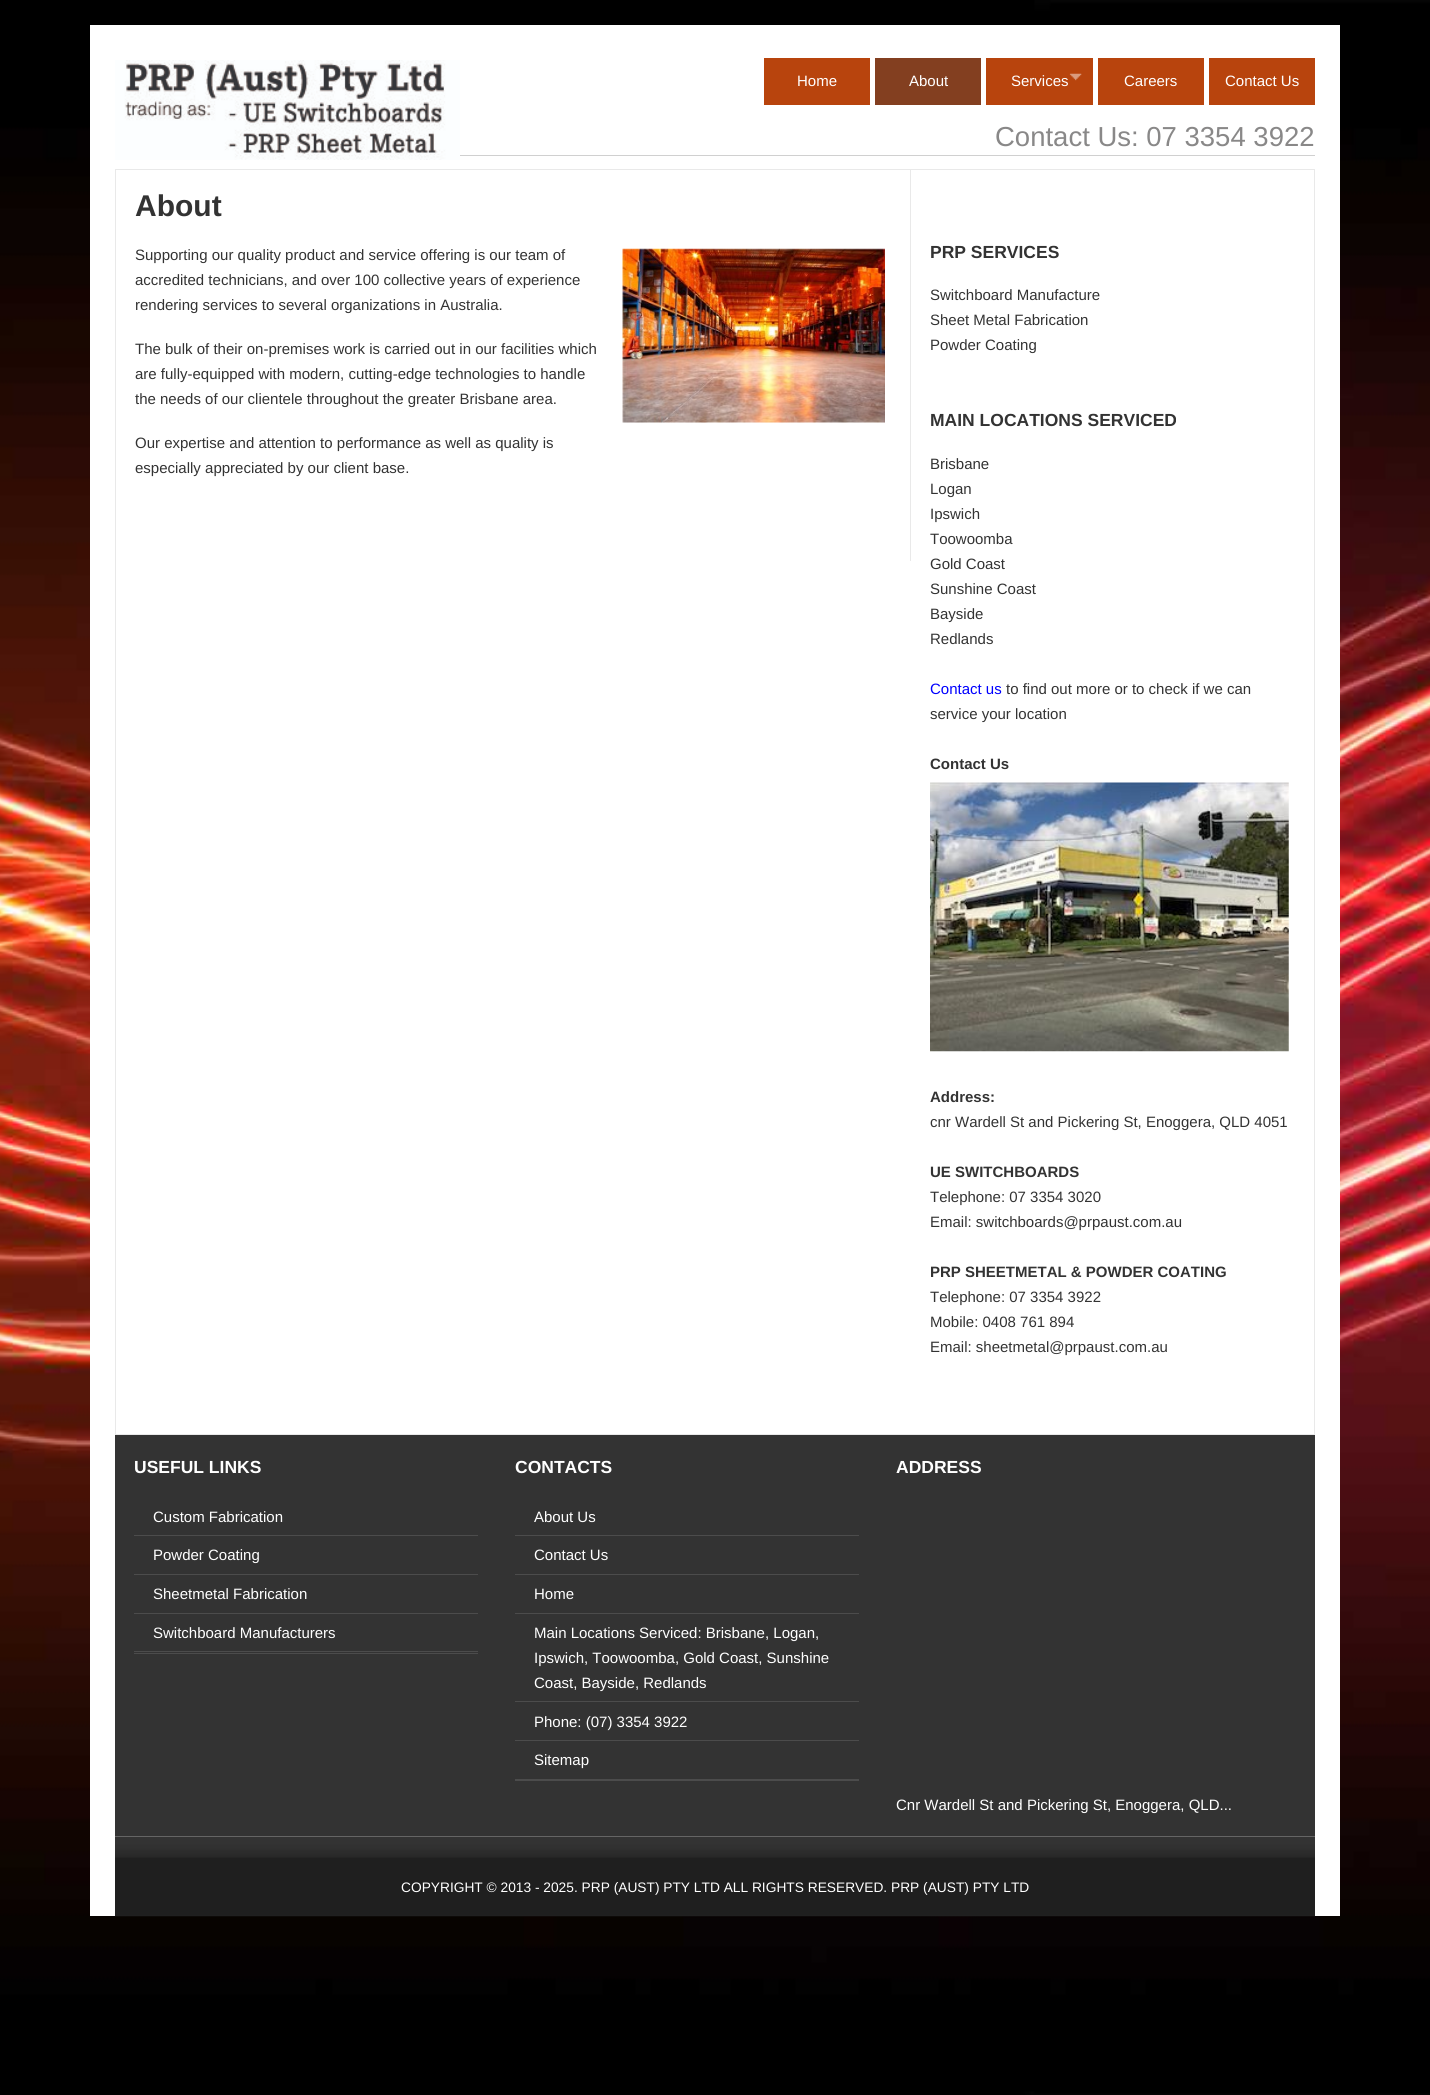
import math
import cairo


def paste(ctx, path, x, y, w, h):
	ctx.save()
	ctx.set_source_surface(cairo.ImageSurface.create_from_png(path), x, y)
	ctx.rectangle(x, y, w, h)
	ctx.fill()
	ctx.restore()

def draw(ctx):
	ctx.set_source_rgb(1, 1, 1)
	ctx.paint()
	paste(ctx, 'media/1.png', 0, 0, 1430, 2095)
	ctx.set_source_rgb(1, 1, 1)
	ctx.rectangle(90, 25, 1250, 1891)
	ctx.fill()
	paste(ctx, 'media/2.png', 115, 60, 345, 100)
	ctx.set_source_rgb(0.722, 0.267, 0.051)
	ctx.rectangle(764, 58, 106, 47)
	ctx.fill()
	ctx.select_font_face('Liberation Sans')
	ctx.set_font_size(15)
	ctx.set_source_rgb(1, 1, 1)
	ctx.move_to(797, 86)
	ctx.show_text('Home')
	ctx.set_source_rgb(0.514, 0.247, 0.125)
	ctx.rectangle(875, 58, 106, 47)
	ctx.fill()
	ctx.set_source_rgb(1, 1, 1)
	ctx.move_to(909, 86)
	ctx.show_text('About')
	ctx.set_source_rgb(0.722, 0.267, 0.051)
	ctx.rectangle(986, 58, 107, 47)
	ctx.fill()
	ctx.set_source_rgb(1, 1, 1)
	ctx.move_to(1011, 86)
	ctx.show_text('Services')
	paste(ctx, 'media/3.png', 1069, 73, 13, 8)
	ctx.set_source_rgb(0.722, 0.267, 0.051)
	ctx.rectangle(1098, 58, 106, 47)
	ctx.fill()
	ctx.set_source_rgb(1, 1, 1)
	ctx.move_to(1124, 86)
	ctx.show_text('Careers')
	ctx.set_source_rgb(0.722, 0.267, 0.051)
	ctx.rectangle(1209, 58, 106, 47)
	ctx.fill()
	ctx.set_source_rgb(1, 1, 1)
	ctx.move_to(1225, 86)
	ctx.show_text('Contact Us')
	ctx.set_source_rgb(0.816, 0.816, 0.816)
	ctx.rectangle(460, 155, 855, 1)
	ctx.fill()
	ctx.set_font_size(27.5)
	ctx.set_source_rgb(0.537, 0.533, 0.533)
	ctx.move_to(995, 146)
	ctx.show_text('Contact Us: 07 3354 3922')
	ctx.rectangle(115.5, 169.5, 1199, 1265)
	ctx.set_source_rgb(0.914, 0.914, 0.914)
	ctx.set_line_width(1)
	ctx.stroke()
	ctx.rectangle(910, 170, 1, 391)
	ctx.fill()
	ctx.select_font_face('Liberation Sans', cairo.FONT_SLANT_NORMAL, cairo.FONT_WEIGHT_BOLD)
	ctx.set_font_size(30)
	ctx.set_source_rgb(0.2, 0.2, 0.2)
	ctx.move_to(135, 216)
	ctx.show_text('About')
	ctx.select_font_face('Liberation Sans')
	ctx.set_font_size(15)
	for x, y, s in [
		(135, 260, 'Supporting our quality product and service offering is our team of'),
		(135, 285, 'accredited technicians, and over 100 collective years of experience'),
		(135, 310, 'rendering services to several organizations in Australia.'),
	]:
		ctx.move_to(x, y)
		ctx.show_text(s)
	paste(ctx, 'media/4.png', 622, 248, 263, 175)
	for x, y, s in [
		(135, 354, 'The bulk of their on-premises work is carried out in our facilities which'),
		(135, 379, 'are fully-equipped with modern, cutting-edge technologies to handle'),
		(135, 404, 'the needs of our clientele throughout the greater Brisbane area.'),
		(135, 448, 'Our expertise and attention to performance as well as quality is'),
		(135, 473, 'especially appreciated by our client base.'),
	]:
		ctx.move_to(x, y)
		ctx.show_text(s)
	ctx.select_font_face('Liberation Sans', cairo.FONT_SLANT_NORMAL, cairo.FONT_WEIGHT_BOLD)
	ctx.set_font_size(17.5)
	ctx.move_to(930, 258)
	ctx.show_text('PRP SERVICES')
	ctx.select_font_face('Liberation Sans')
	ctx.set_font_size(15)
	for x, y, s in [
		(930, 300, 'Switchboard Manufacture'),
		(930, 325, 'Sheet Metal Fabrication'),
		(930, 350, 'Powder Coating'),
	]:
		ctx.move_to(x, y)
		ctx.show_text(s)
	ctx.select_font_face('Liberation Sans', cairo.FONT_SLANT_NORMAL, cairo.FONT_WEIGHT_BOLD)
	ctx.set_font_size(17.5)
	ctx.move_to(930, 426)
	ctx.show_text('MAIN LOCATIONS SERVICED')
	ctx.select_font_face('Liberation Sans')
	ctx.set_font_size(15)
	for x, y, s in [
		(930, 469, 'Brisbane'),
		(930, 494, 'Logan'),
		(930, 519, 'Ipswich'),
		(930, 544, 'Toowoomba'),
		(930, 569, 'Gold Coast'),
		(930, 594, 'Sunshine Coast'),
		(930, 619, 'Bayside'),
		(930, 644, 'Redlands'),
	]:
		ctx.move_to(x, y)
		ctx.show_text(s)
	ctx.set_source_rgb(0, 0, 1)
	ctx.move_to(930, 694)
	ctx.show_text('Contact us')
	ctx.set_source_rgb(0.2, 0.2, 0.2)
	ctx.move_to(1006, 694)
	ctx.show_text('to find out more or to check if we can')
	ctx.move_to(930, 719)
	ctx.show_text('service your location')
	ctx.select_font_face('Liberation Sans', cairo.FONT_SLANT_NORMAL, cairo.FONT_WEIGHT_BOLD)
	ctx.move_to(930, 769)
	ctx.show_text('Contact Us')
	paste(ctx, 'media/5.png', 930, 782, 359, 270)
	ctx.move_to(930, 1102)
	ctx.show_text('Address:')
	ctx.select_font_face('Liberation Sans')
	ctx.move_to(930, 1127)
	ctx.show_text('cnr Wardell St and Pickering St, Enoggera, QLD 4051')
	ctx.select_font_face('Liberation Sans', cairo.FONT_SLANT_NORMAL, cairo.FONT_WEIGHT_BOLD)
	ctx.move_to(930, 1177)
	ctx.show_text('UE SWITCHBOARDS')
	ctx.select_font_face('Liberation Sans')
	ctx.move_to(930, 1202)
	ctx.show_text('Telephone: 07 3354 3020')
	ctx.move_to(930, 1227)
	ctx.show_text('Email: switchboards@prpaust.com.au')
	ctx.select_font_face('Liberation Sans', cairo.FONT_SLANT_NORMAL, cairo.FONT_WEIGHT_BOLD)
	ctx.move_to(930, 1277)
	ctx.show_text('PRP SHEETMETAL & POWDER COATING')
	ctx.select_font_face('Liberation Sans')
	for x, y, s in [
		(930, 1302, 'Telephone: 07 3354 3922'),
		(930, 1327, 'Mobile: 0408 761 894'),
		(930, 1352, 'Email: sheetmetal@prpaust.com.au'),
	]:
		ctx.move_to(x, y)
		ctx.show_text(s)
	ctx.rectangle(115, 1435, 1200, 401)
	ctx.fill()
	ctx.set_source_rgb(0.298, 0.298, 0.298)
	ctx.rectangle(134, 1653, 344, 1)
	ctx.fill()
	ctx.select_font_face('Liberation Sans', cairo.FONT_SLANT_NORMAL, cairo.FONT_WEIGHT_BOLD)
	ctx.set_font_size(17.5)
	ctx.set_source_rgb(1, 1, 1)
	ctx.move_to(134, 1473)
	ctx.show_text('USEFUL LINKS')
	ctx.set_source_rgb(0.298, 0.298, 0.298)
	ctx.rectangle(134, 1535, 344, 1)
	ctx.fill()
	ctx.select_font_face('Liberation Sans')
	ctx.set_font_size(15)
	ctx.set_source_rgb(1, 1, 1)
	ctx.move_to(153, 1522)
	ctx.show_text('Custom Fabrication')
	ctx.set_source_rgb(0.298, 0.298, 0.298)
	ctx.rectangle(134, 1574, 344, 1)
	ctx.fill()
	ctx.set_source_rgb(1, 1, 1)
	ctx.move_to(153, 1560)
	ctx.show_text('Powder Coating')
	ctx.set_source_rgb(0.298, 0.298, 0.298)
	ctx.rectangle(134, 1613, 344, 1)
	ctx.fill()
	ctx.set_source_rgb(1, 1, 1)
	ctx.move_to(153, 1599)
	ctx.show_text('Sheetmetal Fabrication')
	ctx.set_source_rgb(0.298, 0.298, 0.298)
	ctx.rectangle(134, 1651, 344, 1)
	ctx.fill()
	ctx.set_source_rgb(1, 1, 1)
	ctx.move_to(153, 1638)
	ctx.show_text('Switchboard Manufacturers')
	ctx.set_source_rgb(0.298, 0.298, 0.298)
	ctx.rectangle(515, 1779, 344, 2)
	ctx.fill()
	ctx.select_font_face('Liberation Sans', cairo.FONT_SLANT_NORMAL, cairo.FONT_WEIGHT_BOLD)
	ctx.set_font_size(17.5)
	ctx.set_source_rgb(1, 1, 1)
	ctx.move_to(515, 1473)
	ctx.show_text('CONTACTS')
	ctx.set_source_rgb(0.298, 0.298, 0.298)
	ctx.rectangle(515, 1535, 344, 1)
	ctx.fill()
	ctx.select_font_face('Liberation Sans')
	ctx.set_font_size(15)
	ctx.set_source_rgb(1, 1, 1)
	ctx.move_to(534, 1522)
	ctx.show_text('About Us')
	ctx.set_source_rgb(0.298, 0.298, 0.298)
	ctx.rectangle(515, 1574, 344, 1)
	ctx.fill()
	ctx.set_source_rgb(1, 1, 1)
	ctx.move_to(534, 1560)
	ctx.show_text('Contact Us')
	ctx.set_source_rgb(0.298, 0.298, 0.298)
	ctx.rectangle(515, 1613, 344, 1)
	ctx.fill()
	ctx.set_source_rgb(1, 1, 1)
	ctx.move_to(534, 1599)
	ctx.show_text('Home')
	ctx.set_source_rgb(0.298, 0.298, 0.298)
	ctx.rectangle(515, 1701, 344, 1)
	ctx.fill()
	ctx.set_source_rgb(1, 1, 1)
	for x, y, s in [
		(534, 1638, 'Main Locations Serviced: Brisbane, Logan,'),
		(534, 1663, 'Ipswich, Toowoomba, Gold Coast, Sunshine'),
		(534, 1688, 'Coast, Bayside, Redlands'),
	]:
		ctx.move_to(x, y)
		ctx.show_text(s)
	ctx.set_source_rgb(0.298, 0.298, 0.298)
	ctx.rectangle(515, 1740, 344, 1)
	ctx.fill()
	ctx.set_source_rgb(1, 1, 1)
	ctx.move_to(534, 1727)
	ctx.show_text('Phone: (07) 3354 3922')
	ctx.move_to(534, 1765)
	ctx.show_text('Sitemap')
	ctx.select_font_face('Liberation Sans', cairo.FONT_SLANT_NORMAL, cairo.FONT_WEIGHT_BOLD)
	ctx.set_font_size(17.5)
	ctx.move_to(896, 1473)
	ctx.show_text('ADDRESS')
	ctx.select_font_face('Liberation Sans')
	ctx.set_font_size(15)
	ctx.move_to(896, 1810)
	ctx.show_text('Cnr Wardell St and Pickering St, Enoggera, QLD...')
	paste(ctx, 'media/6.png', 115, 1836, 1200, 81)
	ctx.set_font_size(13.75)
	ctx.move_to(401, 1892)
	ctx.show_text('COPYRIGHT © 2013 - 2025. PRP (AUST) PTY LTD ALL RIGHTS RESERVED. PRP (AUST) PTY LTD')


surface = cairo.ImageSurface(cairo.FORMAT_RGB24, 1430, 2095)
ctx = cairo.Context(surface)
options = cairo.FontOptions()
options.set_hint_metrics(cairo.HINT_METRICS_OFF)
options.set_hint_style(cairo.HINT_STYLE_NONE)
ctx.set_font_options(options)
ctx.set_miter_limit(4)
draw(ctx)
surface.write_to_png('image.png')
